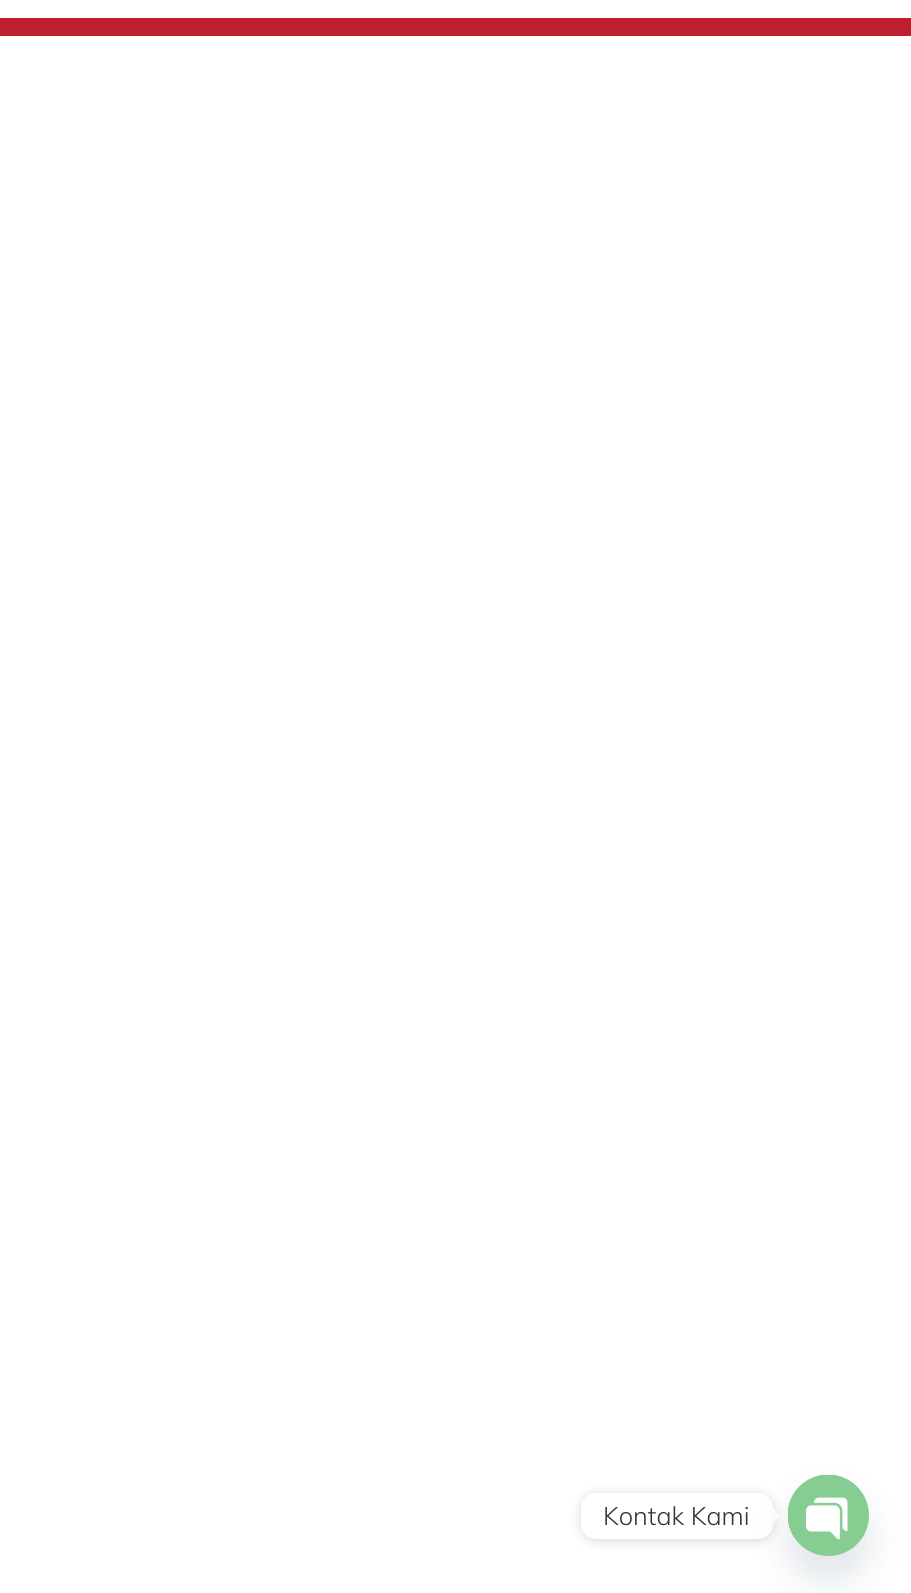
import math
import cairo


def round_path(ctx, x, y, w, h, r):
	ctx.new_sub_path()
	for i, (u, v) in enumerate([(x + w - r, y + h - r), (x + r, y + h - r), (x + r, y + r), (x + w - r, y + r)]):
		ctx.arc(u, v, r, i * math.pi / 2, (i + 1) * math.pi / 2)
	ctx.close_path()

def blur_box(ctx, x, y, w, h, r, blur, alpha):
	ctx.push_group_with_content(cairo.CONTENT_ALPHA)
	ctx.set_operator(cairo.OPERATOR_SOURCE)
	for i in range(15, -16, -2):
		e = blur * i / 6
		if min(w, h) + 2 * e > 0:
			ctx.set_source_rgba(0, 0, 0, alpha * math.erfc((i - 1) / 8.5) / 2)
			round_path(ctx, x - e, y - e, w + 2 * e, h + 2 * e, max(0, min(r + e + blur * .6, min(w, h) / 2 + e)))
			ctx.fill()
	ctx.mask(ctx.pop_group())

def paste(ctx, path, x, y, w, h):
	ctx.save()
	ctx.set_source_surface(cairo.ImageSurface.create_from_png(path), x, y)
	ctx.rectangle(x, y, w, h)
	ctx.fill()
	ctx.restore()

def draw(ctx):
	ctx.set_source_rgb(1, 1, 1)
	ctx.paint()
	ctx.set_source_rgb(0.749, 0.118, 0.176)
	ctx.rectangle(0, 18, 911, 18)
	ctx.fill()
	ctx.set_source_rgb(0, 0, 0)
	blur_box(ctx, 581, 1494, 192, 47, 15, 6, 0.15)
	ctx.set_source_rgb(1, 1, 1)
	round_path(ctx, 581, 1493, 192, 46, 15)
	ctx.fill()
	ctx.select_font_face('Mulish Light')
	ctx.set_font_size(25.5)
	ctx.set_source_rgb(0.2, 0.2, 0.2)
	ctx.move_to(603, 1525)
	ctx.show_text('Kontak Kami')
	ctx.set_source_rgb(1, 1, 1)
	ctx.new_path()
	ctx.move_to(772.5, 1523)
	ctx.line_to(772.5, 1508)
	ctx.line_to(780, 1516)
	ctx.close_path()
	ctx.fill()
	ctx.set_source_rgb(0.286, 0.408, 0.494)
	blur_box(ctx, 788, 1499, 81, 81, 40.5, 18, 0.16)
	ctx.set_source_rgb(0.525, 0.804, 0.569)
	ctx.arc(828.5, 1515.5, 40.5, 0, 2 * math.pi)
	ctx.fill()
	paste(ctx, 'media/1.png', 788, 1475, 79, 79)


surface = cairo.ImageSurface(cairo.FORMAT_RGB24, 911, 1593)
ctx = cairo.Context(surface)
options = cairo.FontOptions()
options.set_hint_metrics(cairo.HINT_METRICS_OFF)
options.set_hint_style(cairo.HINT_STYLE_NONE)
ctx.set_font_options(options)
ctx.set_miter_limit(4)
draw(ctx)
surface.write_to_png('image.png')
